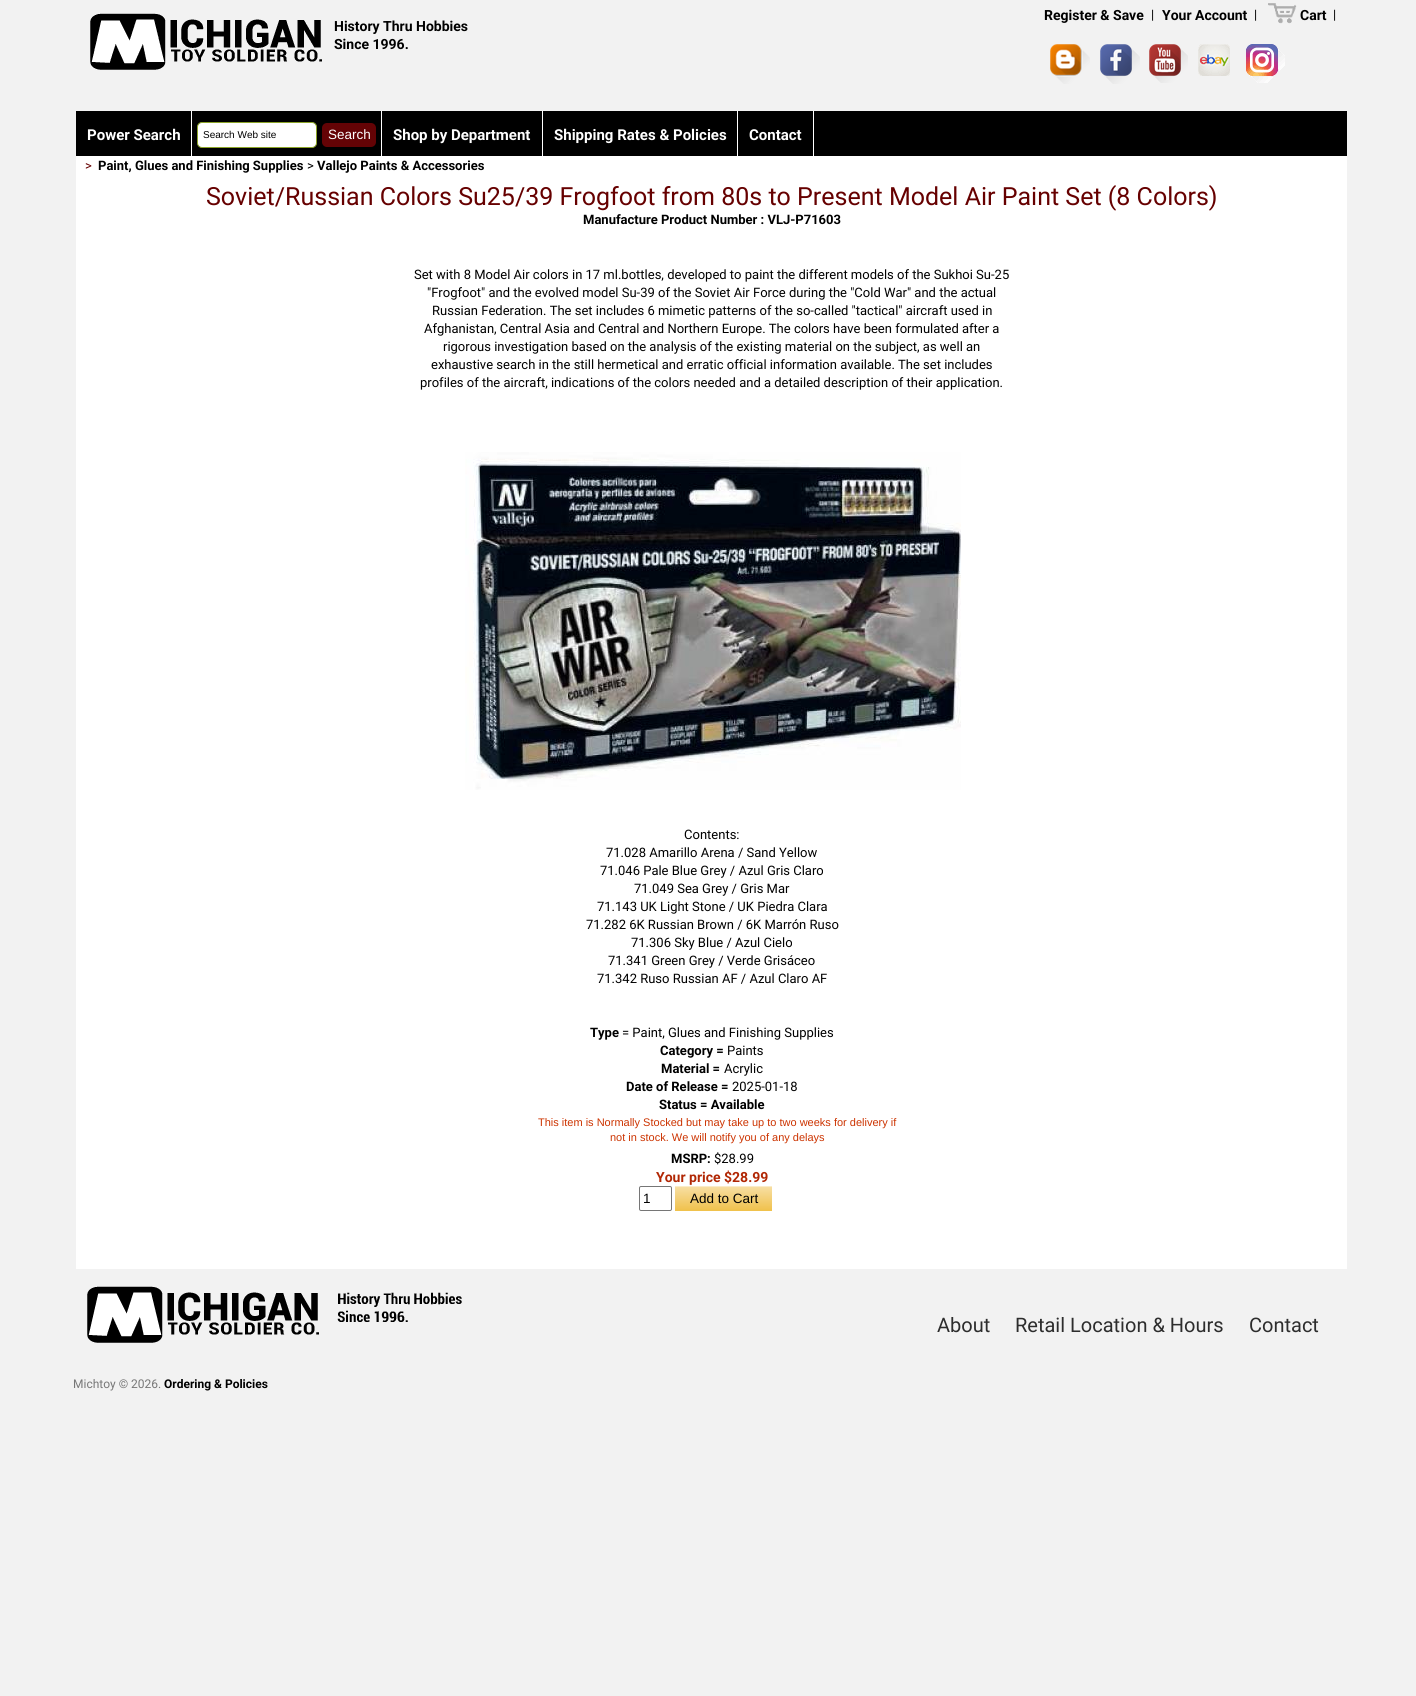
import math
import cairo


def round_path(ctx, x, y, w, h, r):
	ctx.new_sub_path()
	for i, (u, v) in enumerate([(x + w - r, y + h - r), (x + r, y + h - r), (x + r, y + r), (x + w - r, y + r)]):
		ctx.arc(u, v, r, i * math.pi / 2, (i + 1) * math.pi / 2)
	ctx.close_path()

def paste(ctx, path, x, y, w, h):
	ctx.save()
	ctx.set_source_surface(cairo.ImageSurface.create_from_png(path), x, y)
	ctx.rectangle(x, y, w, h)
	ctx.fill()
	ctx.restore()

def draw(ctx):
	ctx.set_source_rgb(0.949, 0.949, 0.949)
	ctx.paint()
	ctx.set_source_rgb(1, 1, 1)
	ctx.rectangle(76, 156, 1271, 1113)
	ctx.fill()
	ctx.select_font_face('Roboto', cairo.FONT_SLANT_NORMAL, cairo.FONT_WEIGHT_BOLD)
	ctx.set_font_size(14)
	ctx.set_source_rgb(0, 0, 0)
	ctx.move_to(1044, 20)
	ctx.show_text('Register & Save')
	ctx.select_font_face('Roboto')
	ctx.set_font_size(13)
	ctx.move_to(1151, 19)
	ctx.show_text('|')
	ctx.select_font_face('Roboto', cairo.FONT_SLANT_NORMAL, cairo.FONT_WEIGHT_BOLD)
	ctx.set_font_size(14)
	ctx.move_to(1162, 20)
	ctx.show_text('Your Account')
	ctx.select_font_face('Roboto')
	ctx.set_font_size(13)
	ctx.move_to(1254, 19)
	ctx.show_text('|')
	paste(ctx, 'media/1.png', 1268, 3, 29, 21)
	ctx.select_font_face('Roboto', cairo.FONT_SLANT_NORMAL, cairo.FONT_WEIGHT_BOLD)
	ctx.set_font_size(14)
	ctx.move_to(1300, 20)
	ctx.show_text('Cart')
	ctx.select_font_face('Roboto')
	ctx.set_font_size(13)
	ctx.move_to(1333, 19)
	ctx.show_text('|')
	paste(ctx, 'media/2.png', 1050, 44, 40, 40)
	paste(ctx, 'media/3.png', 1100, 44, 40, 40)
	paste(ctx, 'media/4.png', 1149, 44, 39, 39)
	paste(ctx, 'media/5.png', 1198, 44, 32, 32)
	paste(ctx, 'media/6.png', 1246, 44, 39, 39)
	paste(ctx, 'media/7.png', 90, 13, 232, 57)
	ctx.select_font_face('Roboto', cairo.FONT_SLANT_NORMAL, cairo.FONT_WEIGHT_BOLD)
	ctx.set_font_size(14)
	ctx.move_to(334, 31)
	ctx.show_text('History Thru Hobbies')
	ctx.move_to(334, 49)
	ctx.show_text('Since 1996.')
	ctx.rectangle(76, 111, 1271, 45)
	ctx.fill()
	ctx.set_source_rgb(1, 1, 1)
	ctx.rectangle(191, 111, 1, 45)
	ctx.fill()
	ctx.set_font_size(15)
	ctx.move_to(87, 140)
	ctx.show_text('Power Search')
	ctx.rectangle(381, 111, 1, 45)
	ctx.fill()
	round_path(ctx, 197.5, 122.5, 119, 25, 4.5)
	ctx.fill_preserve()
	ctx.set_source_rgb(0.549, 0.643, 0.157)
	ctx.set_line_width(1)
	ctx.stroke()
	ctx.select_font_face('Liberation Sans')
	ctx.set_font_size(10)
	ctx.set_source_rgb(0, 0, 0)
	ctx.move_to(203, 138)
	ctx.show_text('Search Web site')
	ctx.set_source_rgb(0.392, 0.012, 0.02)
	round_path(ctx, 322, 123, 54, 24, 5)
	ctx.fill()
	ctx.set_font_size(13.5)
	ctx.set_source_rgb(1, 1, 1)
	ctx.move_to(328, 139)
	ctx.show_text('Search')
	ctx.rectangle(542, 111, 1, 45)
	ctx.fill()
	ctx.select_font_face('Roboto', cairo.FONT_SLANT_NORMAL, cairo.FONT_WEIGHT_BOLD)
	ctx.set_font_size(15)
	ctx.move_to(393, 140)
	ctx.show_text('Shop by Department')
	ctx.rectangle(737, 111, 1, 45)
	ctx.fill()
	ctx.move_to(554, 140)
	ctx.show_text('Shipping Rates & Policies')
	ctx.rectangle(813, 111, 1, 45)
	ctx.fill()
	ctx.move_to(749, 140)
	ctx.show_text('Contact')
	ctx.select_font_face('Roboto')
	ctx.set_font_size(13)
	ctx.set_source_rgb(0.4, 0, 0)
	ctx.move_to(85, 170)
	ctx.show_text('>')
	ctx.select_font_face('Roboto', cairo.FONT_SLANT_NORMAL, cairo.FONT_WEIGHT_BOLD)
	ctx.set_source_rgb(0, 0, 0)
	ctx.move_to(98, 170)
	ctx.show_text('Paint, Glues and Finishing Supplies')
	ctx.select_font_face('Roboto')
	ctx.move_to(307, 170)
	ctx.show_text('>')
	ctx.select_font_face('Roboto', cairo.FONT_SLANT_NORMAL, cairo.FONT_WEIGHT_BOLD)
	ctx.move_to(317, 170)
	ctx.show_text('Vallejo Paints & Accessories')
	ctx.select_font_face('Roboto')
	ctx.set_font_size(25)
	ctx.set_source_rgb(0.4, 0, 0)
	ctx.move_to(206, 205)
	ctx.show_text('Soviet/Russian Colors Su25/39 Frogfoot from 80s to Present Model Air Paint Set (8 Colors)')
	ctx.select_font_face('Roboto', cairo.FONT_SLANT_NORMAL, cairo.FONT_WEIGHT_BOLD)
	ctx.set_font_size(13)
	ctx.set_source_rgb(0, 0, 0)
	ctx.move_to(583, 224)
	ctx.show_text('Manufacture Product Number : VLJ-P71603')
	ctx.select_font_face('Roboto')
	for x, y, s in [
		(414, 279, 'Set with 8 Model Air colors in 17 ml.bottles, developed to paint the different models of the Sukhoi Su-25'),
		(427, 297, '"Frogfoot" and the evolved model Su-39 of the Soviet Air Force during the "Cold War" and the actual'),
		(432, 315, 'Russian Federation. The set includes 6 mimetic patterns of the so-called "tactical" aircraft used in'),
		(424, 333, 'Afghanistan, Central Asia and Central and Northern Europe. The colors have been formulated after a'),
		(443, 351, 'rigorous investigation based on the analysis of the existing material on the subject, as well an'),
		(431, 369, 'exhaustive search in the still hermetical and erratic official information available. The set includes'),
		(420, 387, 'profiles of the aircraft, indications of the colors needed and a detailed description of their application.'),
	]:
		ctx.move_to(x, y)
		ctx.show_text(s)
	paste(ctx, 'media/8.png', 465, 452, 496, 338)
	for x, y, s in [
		(684, 839, 'Contents:'),
		(606, 857, '71.028 Amarillo Arena / Sand Yellow'),
		(600, 875, '71.046 Pale Blue Grey / Azul Gris Claro'),
		(634, 893, '71.049 Sea Grey / Gris Mar'),
		(597, 911, '71.143 UK Light Stone / UK Piedra Clara'),
		(586, 929, '71.282 6K Russian Brown / 6K Marrón Ruso'),
		(631, 947, '71.306 Sky Blue / Azul Cielo'),
		(608, 965, '71.341 Green Grey / Verde Grisáceo'),
		(597, 983, '71.342 Ruso Russian AF / Azul Claro AF'),
	]:
		ctx.move_to(x, y)
		ctx.show_text(s)
	ctx.select_font_face('Roboto', cairo.FONT_SLANT_NORMAL, cairo.FONT_WEIGHT_BOLD)
	ctx.move_to(590, 1037)
	ctx.show_text('Type')
	ctx.select_font_face('Roboto')
	ctx.move_to(622, 1037)
	ctx.show_text('= Paint, Glues and Finishing Supplies')
	ctx.select_font_face('Roboto', cairo.FONT_SLANT_NORMAL, cairo.FONT_WEIGHT_BOLD)
	ctx.move_to(660, 1055)
	ctx.show_text('Category =')
	ctx.select_font_face('Roboto')
	ctx.move_to(727, 1055)
	ctx.show_text('Paints')
	ctx.select_font_face('Roboto', cairo.FONT_SLANT_NORMAL, cairo.FONT_WEIGHT_BOLD)
	ctx.move_to(661, 1073)
	ctx.show_text('Material =')
	ctx.select_font_face('Roboto')
	ctx.move_to(724, 1073)
	ctx.show_text('Acrylic')
	ctx.select_font_face('Roboto', cairo.FONT_SLANT_NORMAL, cairo.FONT_WEIGHT_BOLD)
	ctx.move_to(626, 1091)
	ctx.show_text('Date of Release =')
	ctx.select_font_face('Roboto')
	ctx.move_to(732, 1091)
	ctx.show_text('2025-01-18')
	ctx.select_font_face('Roboto', cairo.FONT_SLANT_NORMAL, cairo.FONT_WEIGHT_BOLD)
	ctx.move_to(659, 1109)
	ctx.show_text('Status = Available')
	ctx.select_font_face('Liberation Sans')
	ctx.set_font_size(11)
	ctx.set_source_rgb(0.8, 0.2, 0)
	ctx.move_to(538, 1126)
	ctx.show_text('This item is Normally Stocked but may take up to two weeks for delivery if')
	ctx.move_to(610, 1141)
	ctx.show_text('not in stock. We will notify you of any delays')
	ctx.select_font_face('Roboto', cairo.FONT_SLANT_NORMAL, cairo.FONT_WEIGHT_BOLD)
	ctx.set_font_size(13)
	ctx.set_source_rgb(0, 0, 0)
	ctx.move_to(671, 1163)
	ctx.show_text('MSRP:')
	ctx.select_font_face('Roboto')
	ctx.move_to(714, 1163)
	ctx.show_text('$28.99')
	ctx.select_font_face('Roboto', cairo.FONT_SLANT_NORMAL, cairo.FONT_WEIGHT_BOLD)
	ctx.set_font_size(14)
	ctx.set_source_rgb(0.694, 0.153, 0.016)
	ctx.move_to(656, 1182)
	ctx.show_text('Your price $28.99')
	round_path(ctx, 639.5, 1186.5, 32, 24, 1.5)
	ctx.set_source_rgb(0.463, 0.463, 0.463)
	ctx.stroke()
	ctx.select_font_face('Liberation Sans')
	ctx.set_font_size(13.5)
	ctx.set_source_rgb(0, 0, 0)
	ctx.move_to(643, 1203)
	ctx.show_text('1')
	gradient = cairo.LinearGradient(724, 1186, 724, 1211)
	gradient.add_color_stop_rgba(0, 0.969, 0.875, 0.647, 1)
	gradient.add_color_stop_rgba(1, 0.941, 0.757, 0.294, 1)
	ctx.set_source(gradient)
	ctx.rectangle(675, 1187, 97, 24)
	ctx.fill()
	ctx.set_source_rgb(0.98, 0.922, 0.784)
	ctx.rectangle(675, 1186, 97, 1)
	ctx.fill()
	ctx.set_source_rgb(0, 0, 0)
	ctx.move_to(690, 1203)
	ctx.show_text('Add to Cart')
	paste(ctx, 'media/9.png', 87, 1286, 375, 57)
	ctx.select_font_face('Roboto')
	ctx.set_font_size(20)
	ctx.set_source_rgb(0.176, 0.176, 0.176)
	for x, y, s in [
		(937, 1332, 'About'),
		(1015, 1332, 'Retail Location & Hours'),
		(1249, 1332, 'Contact'),
	]:
		ctx.move_to(x, y)
		ctx.show_text(s)
	ctx.set_font_size(12)
	ctx.set_source_rgb(0.467, 0.467, 0.467)
	ctx.move_to(73, 1388)
	ctx.show_text('Michtoy © 2026.')
	ctx.select_font_face('Roboto', cairo.FONT_SLANT_NORMAL, cairo.FONT_WEIGHT_BOLD)
	ctx.set_source_rgb(0, 0, 0)
	ctx.move_to(164, 1388)
	ctx.show_text('Ordering & Policies')


surface = cairo.ImageSurface(cairo.FORMAT_RGB24, 1416, 1696)
ctx = cairo.Context(surface)
options = cairo.FontOptions()
options.set_hint_metrics(cairo.HINT_METRICS_OFF)
options.set_hint_style(cairo.HINT_STYLE_NONE)
ctx.set_font_options(options)
ctx.set_miter_limit(4)
draw(ctx)
surface.write_to_png('image.png')
